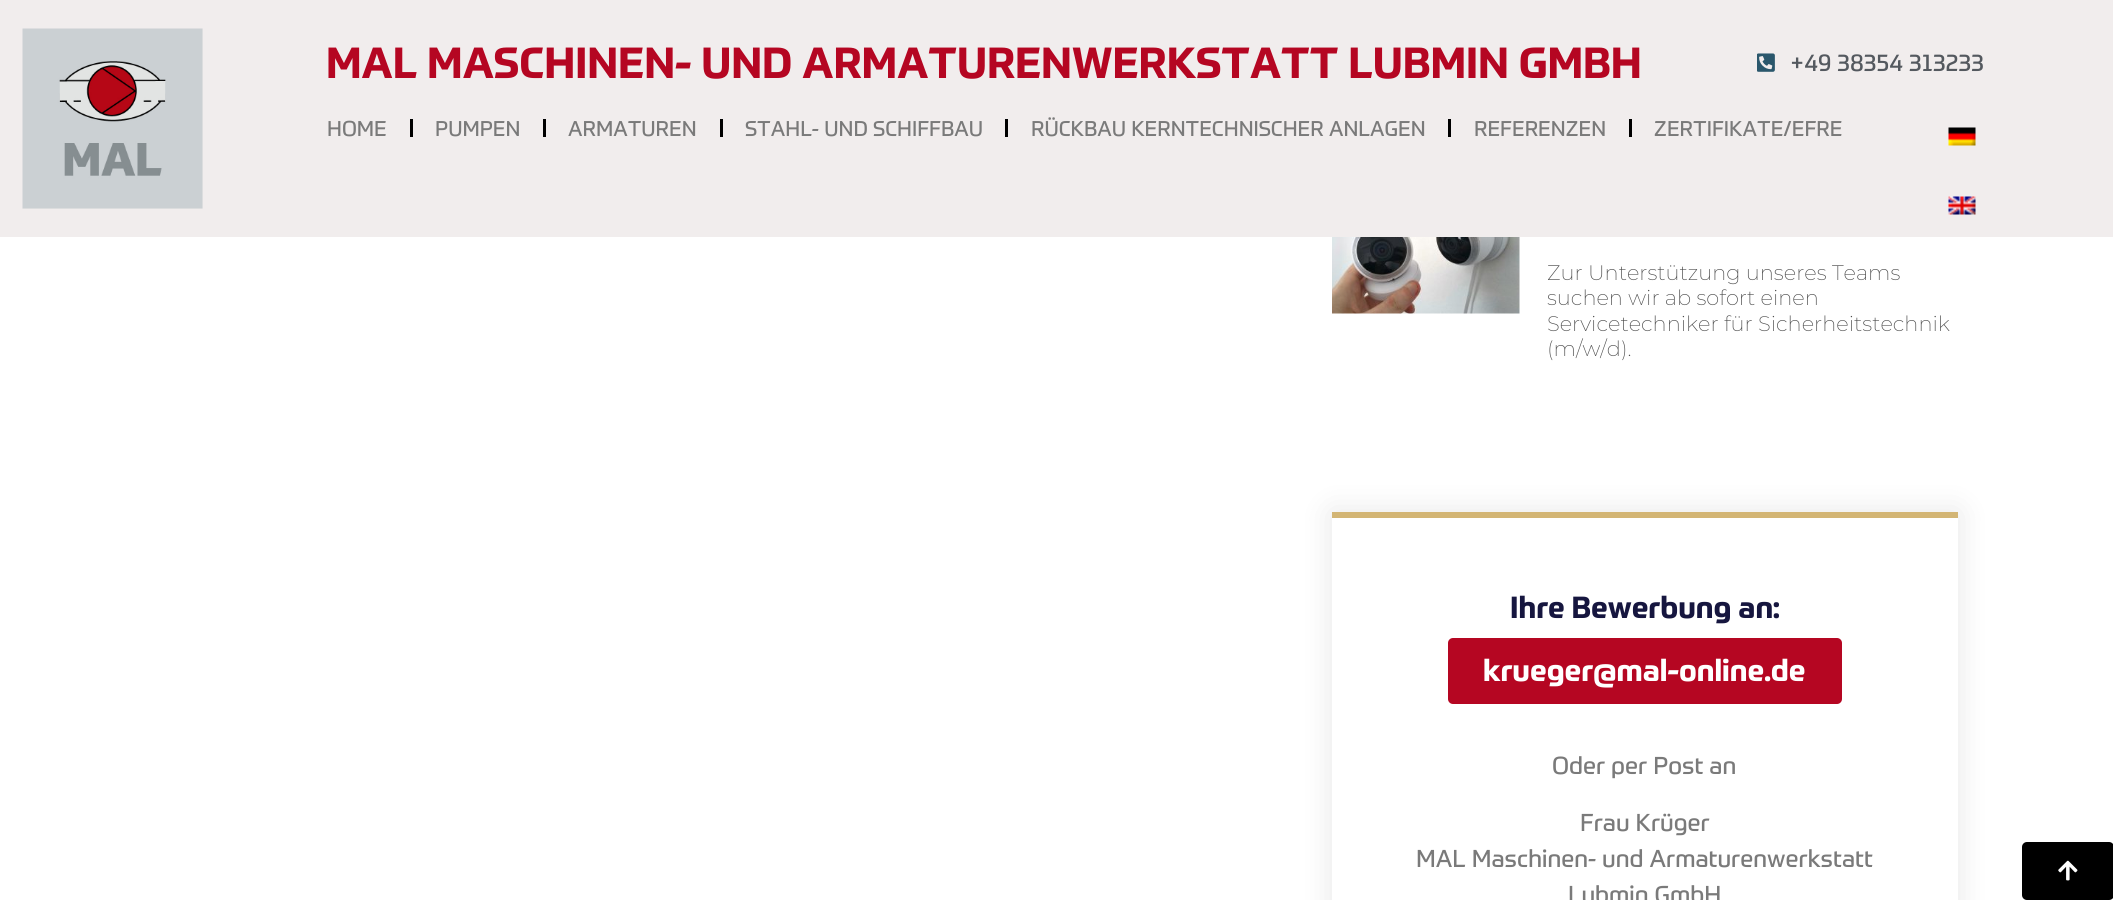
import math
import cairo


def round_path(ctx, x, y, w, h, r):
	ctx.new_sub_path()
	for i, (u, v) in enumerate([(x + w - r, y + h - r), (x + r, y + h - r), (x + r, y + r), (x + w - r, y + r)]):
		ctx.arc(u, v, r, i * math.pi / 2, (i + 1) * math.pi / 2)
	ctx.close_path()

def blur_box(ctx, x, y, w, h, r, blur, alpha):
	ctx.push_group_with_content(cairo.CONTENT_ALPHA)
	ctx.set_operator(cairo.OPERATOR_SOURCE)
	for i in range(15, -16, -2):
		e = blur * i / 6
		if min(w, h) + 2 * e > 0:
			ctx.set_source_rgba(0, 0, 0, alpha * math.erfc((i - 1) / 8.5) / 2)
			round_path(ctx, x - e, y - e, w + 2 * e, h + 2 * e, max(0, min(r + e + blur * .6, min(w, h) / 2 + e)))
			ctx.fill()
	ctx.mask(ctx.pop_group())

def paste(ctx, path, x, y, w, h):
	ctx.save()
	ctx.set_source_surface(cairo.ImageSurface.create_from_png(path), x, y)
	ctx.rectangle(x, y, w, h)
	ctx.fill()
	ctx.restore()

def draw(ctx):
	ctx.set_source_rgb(1, 1, 1)
	ctx.paint()
	ctx.set_source_rgb(0.945, 0.929, 0.929)
	ctx.rectangle(0, 0, 2113, 237)
	ctx.fill()
	paste(ctx, 'media/1.png', 22, 28, 181, 181)
	ctx.select_font_face('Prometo', cairo.FONT_SLANT_NORMAL, cairo.FONT_WEIGHT_BOLD)
	ctx.set_font_size(42.75)
	ctx.set_source_rgb(0.71, 0.027, 0.133)
	ctx.move_to(326, 78)
	ctx.show_text('MAL MASCHINEN- UND ARMATURENWERKSTATT LUBMIN GMBH')
	paste(ctx, 'media/2.png', 1757, 53, 18, 19)
	ctx.select_font_face('Prometo')
	ctx.set_font_size(24)
	ctx.set_source_rgb(0.329, 0.349, 0.373)
	ctx.move_to(1790, 71)
	ctx.show_text('+49 38354 313233')
	ctx.set_font_size(21)
	ctx.set_source_rgb(0.478, 0.478, 0.478)
	ctx.move_to(327, 136)
	ctx.show_text('HOME')
	ctx.set_source_rgb(0, 0, 0)
	ctx.rectangle(410, 119, 3, 18)
	ctx.fill()
	ctx.set_source_rgb(0.478, 0.478, 0.478)
	ctx.move_to(435, 136)
	ctx.show_text('PUMPEN')
	ctx.set_source_rgb(0, 0, 0)
	ctx.rectangle(543, 119, 3, 18)
	ctx.fill()
	ctx.set_source_rgb(0.478, 0.478, 0.478)
	ctx.move_to(568, 136)
	ctx.show_text('ARMATUREN')
	ctx.set_source_rgb(0, 0, 0)
	ctx.rectangle(720, 119, 3, 18)
	ctx.fill()
	ctx.set_source_rgb(0.478, 0.478, 0.478)
	ctx.move_to(745, 136)
	ctx.show_text('STAHL- UND SCHIFFBAU')
	ctx.set_source_rgb(0, 0, 0)
	ctx.rectangle(1005, 119, 3, 18)
	ctx.fill()
	ctx.set_source_rgb(0.478, 0.478, 0.478)
	ctx.move_to(1031, 136)
	ctx.show_text('RÜCKBAU KERNTECHNISCHER ANLAGEN')
	ctx.set_source_rgb(0, 0, 0)
	ctx.rectangle(1448, 119, 3, 18)
	ctx.fill()
	ctx.set_source_rgb(0.478, 0.478, 0.478)
	ctx.move_to(1474, 136)
	ctx.show_text('REFERENZEN')
	ctx.set_source_rgb(0, 0, 0)
	ctx.rectangle(1629, 119, 3, 18)
	ctx.fill()
	ctx.set_source_rgb(0.478, 0.478, 0.478)
	ctx.move_to(1654, 136)
	ctx.show_text('ZERTIFIKATE/EFRE')
	paste(ctx, 'media/3.png', 1948, 127, 28, 19)
	paste(ctx, 'media/4.png', 1948, 196, 28, 19)
	paste(ctx, 'media/5.png', 1332, 237, 188, 77)
	ctx.select_font_face('Montserrat ExtraLight')
	ctx.set_source_rgb(0.29, 0.29, 0.29)
	for x, y, s in [
		(1547, 280, 'Zur Unterstützung unseres Teams'),
		(1547, 305, 'suchen wir ab sofort einen'),
		(1547, 331, 'Servicetechniker für Sicherheitstechnik'),
		(1547, 356, '(m/w/d).'),
	]:
		ctx.move_to(x, y)
		ctx.show_text(s)
	ctx.set_source_rgb(0, 0, 0)
	blur_box(ctx, 1332, 512, 626, 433, 0, 15, 0.1)
	ctx.set_source_rgb(1, 1, 1)
	ctx.rectangle(1332, 518, 626, 382)
	ctx.fill()
	ctx.set_source_rgb(0.827, 0.71, 0.455)
	ctx.rectangle(1332, 512, 626, 6)
	ctx.fill()
	ctx.select_font_face('Prometo', cairo.FONT_SLANT_NORMAL, cairo.FONT_WEIGHT_BOLD)
	ctx.set_font_size(30)
	ctx.set_source_rgb(0.086, 0.086, 0.247)
	ctx.move_to(1510, 618)
	ctx.show_text('Ihre Bewerbung an:')
	ctx.set_source_rgb(0.71, 0.027, 0.133)
	round_path(ctx, 1448, 638, 394, 66, 5)
	ctx.fill()
	ctx.set_source_rgb(1, 1, 1)
	ctx.move_to(1483, 681)
	ctx.show_text('krueger@mal-online.de')
	ctx.select_font_face('Prometo')
	ctx.set_font_size(24)
	ctx.set_source_rgb(0.478, 0.478, 0.478)
	for x, y, s in [
		(1552, 774, 'Oder per Post an'),
		(1580, 831, 'Frau Krüger'),
		(1416, 867, 'MAL Maschinen- und Armaturenwerkstatt'),
		(1568, 903, 'Lubmin GmbH'),
	]:
		ctx.move_to(x, y)
		ctx.show_text(s)
	ctx.set_source_rgb(0, 0, 0)
	round_path(ctx, 2022, 842, 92, 58, 5)
	ctx.fill()
	paste(ctx, 'media/6.png', 2058, 860, 20, 21)


surface = cairo.ImageSurface(cairo.FORMAT_RGB24, 2113, 900)
ctx = cairo.Context(surface)
options = cairo.FontOptions()
options.set_hint_metrics(cairo.HINT_METRICS_OFF)
options.set_hint_style(cairo.HINT_STYLE_NONE)
ctx.set_font_options(options)
ctx.set_miter_limit(4)
draw(ctx)
surface.write_to_png('image.png')
